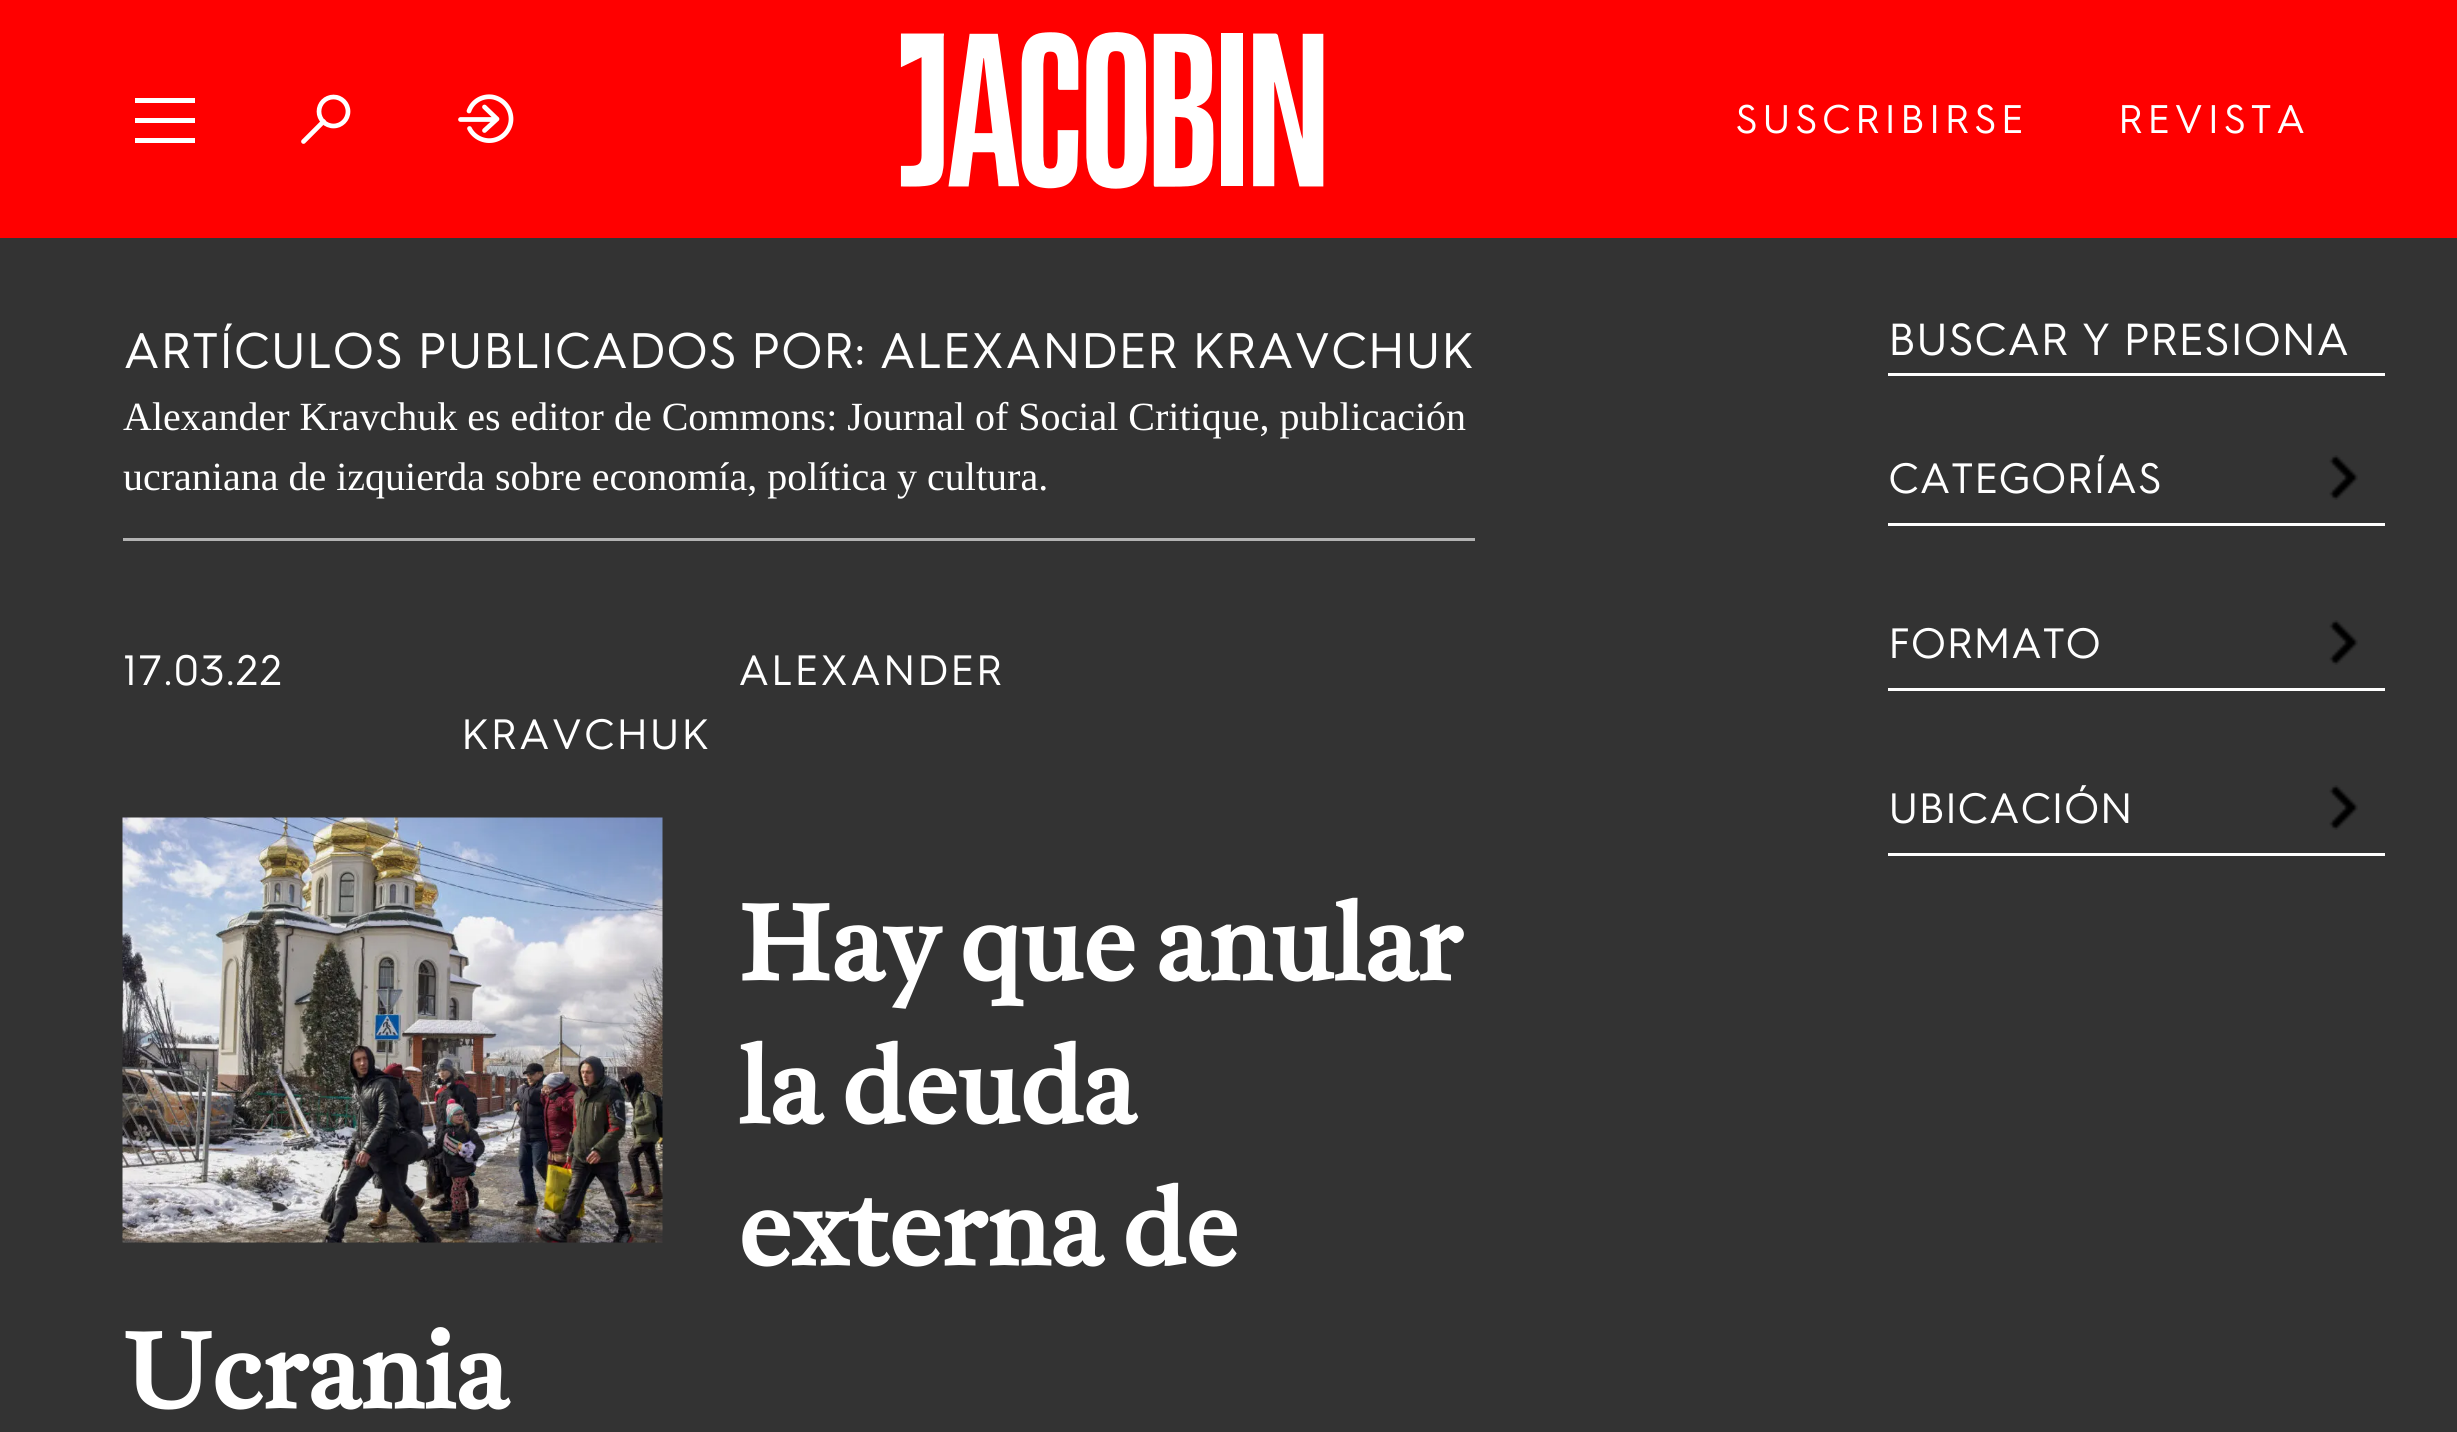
import math
import cairo


def write_spaced(ctx, x, y, s, letter, word):
	ctx.move_to(x, y)
	for ch in s:
		ctx.show_text(ch)
		ctx.rel_move_to(letter + word * (ch == ' '), 0)

def paste(ctx, path, x, y, w, h):
	ctx.save()
	ctx.set_source_surface(cairo.ImageSurface.create_from_png(path), x, y)
	ctx.rectangle(x, y, w, h)
	ctx.fill()
	ctx.restore()

def draw(ctx):
	ctx.set_source_rgb(0.2, 0.2, 0.2)
	ctx.paint()
	ctx.set_source_rgb(1, 0, 0)
	ctx.rectangle(0, 0, 2457, 238)
	ctx.fill()
	ctx.set_source_rgb(1, 1, 1)
	ctx.rectangle(135, 98, 60, 5)
	ctx.rectangle(135, 118, 60, 5)
	ctx.rectangle(135, 138, 60, 5)
	ctx.fill()
	ctx.arc(333.5, 111.5, 14.5, 0, 2 * math.pi)
	ctx.set_line_width(4.7)
	ctx.stroke()
	ctx.new_path()
	ctx.move_to(323.5, 121.5)
	ctx.line_to(303.5, 141.5)
	ctx.set_line_cap(cairo.LINE_CAP_ROUND)
	ctx.set_line_join(cairo.LINE_JOIN_ROUND)
	ctx.stroke()
	ctx.new_path()
	ctx.move_to(460.5, 119.5)
	ctx.line_to(496.5, 119.5)
	ctx.move_to(484.5, 107)
	ctx.line_to(497, 119)
	ctx.line_to(484.5, 130.5)
	ctx.move_to(469.5, 128.5)
	ctx.curve_to(474, 137.5, 484.5, 142.5, 494.5, 140)
	ctx.curve_to(504.5, 137.5, 511.5, 128, 511, 118)
	ctx.curve_to(510.5, 107.5, 503, 99, 492.5, 97)
	ctx.curve_to(482.5, 95.5, 472.5, 101, 469, 111)
	ctx.stroke()
	paste(ctx, 'media/1.png', 900, 32, 424, 157)
	ctx.select_font_face('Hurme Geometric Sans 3')
	ctx.set_font_size(40)
	write_spaced(ctx, 1735, 133, 'SUSCRIBIRSE', 4, 0)
	write_spaced(ctx, 2118, 133, 'REVISTA', 4, 0)
	ctx.set_source_rgb(0.702, 0.702, 0.702)
	ctx.rectangle(123, 538, 1352, 3)
	ctx.fill()
	ctx.set_font_size(50)
	ctx.set_source_rgb(1, 1, 1)
	ctx.move_to(123, 368)
	ctx.show_text('ARTÍCULOS PUBLICADOS POR: ALEXANDER KRAVCHUK')
	ctx.select_font_face('Liberation Serif')
	ctx.set_font_size(40)
	ctx.move_to(123, 430)
	ctx.show_text('Alexander Kravchuk es editor de Commons: Journal of Social Critique, publicación')
	ctx.move_to(123, 490)
	ctx.show_text('ucraniana de izquierda sobre economía, política y cultura.')
	ctx.select_font_face('Hurme Geometric Sans 3')
	ctx.set_font_size(42.5)
	for x, y, s in [
		(123, 685, '17.03.22'),
		(738, 685, 'ALEXANDER'),
		(461, 749, 'KRAVCHUK'),
	]:
		write_spaced(ctx, x, y, s, 1.25, 0)
	paste(ctx, 'media/2.png', 122, 817, 541, 426)
	ctx.select_font_face('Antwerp', cairo.FONT_SLANT_NORMAL, cairo.FONT_WEIGHT_BOLD)
	ctx.set_font_size(105)
	for x, y, s in [
		(738, 980, 'Hay que anular'),
		(738, 1123, 'la deuda'),
		(738, 1265, 'externa de'),
		(123, 1408, 'Ucrania'),
	]:
		ctx.move_to(x, y)
		ctx.show_text(s)
	ctx.rectangle(1888, 373, 497, 3)
	ctx.fill()
	ctx.select_font_face('Hurme Geometric Sans 3')
	ctx.set_font_size(45)
	ctx.move_to(1888, 355)
	ctx.show_text('BUSCAR Y PRESIONA')
	ctx.rectangle(1888, 523, 497, 3)
	ctx.fill()
	ctx.set_font_size(42.5)
	ctx.move_to(1888, 493)
	ctx.show_text('CATEGORÍAS')
	paste(ctx, 'media/3.png', 2329, 455, 29, 45)
	ctx.rectangle(1888, 688, 497, 3)
	ctx.fill()
	ctx.move_to(1888, 658)
	ctx.show_text('FORMATO')
	paste(ctx, 'media/3.png', 2329, 620, 29, 45)
	ctx.rectangle(1888, 853, 497, 3)
	ctx.fill()
	ctx.move_to(1888, 823)
	ctx.show_text('UBICACIÓN')
	paste(ctx, 'media/3.png', 2329, 785, 29, 45)


surface = cairo.ImageSurface(cairo.FORMAT_RGB24, 2457, 1432)
ctx = cairo.Context(surface)
options = cairo.FontOptions()
options.set_hint_metrics(cairo.HINT_METRICS_OFF)
options.set_hint_style(cairo.HINT_STYLE_NONE)
ctx.set_font_options(options)
ctx.set_miter_limit(4)
draw(ctx)
surface.write_to_png('image.png')
